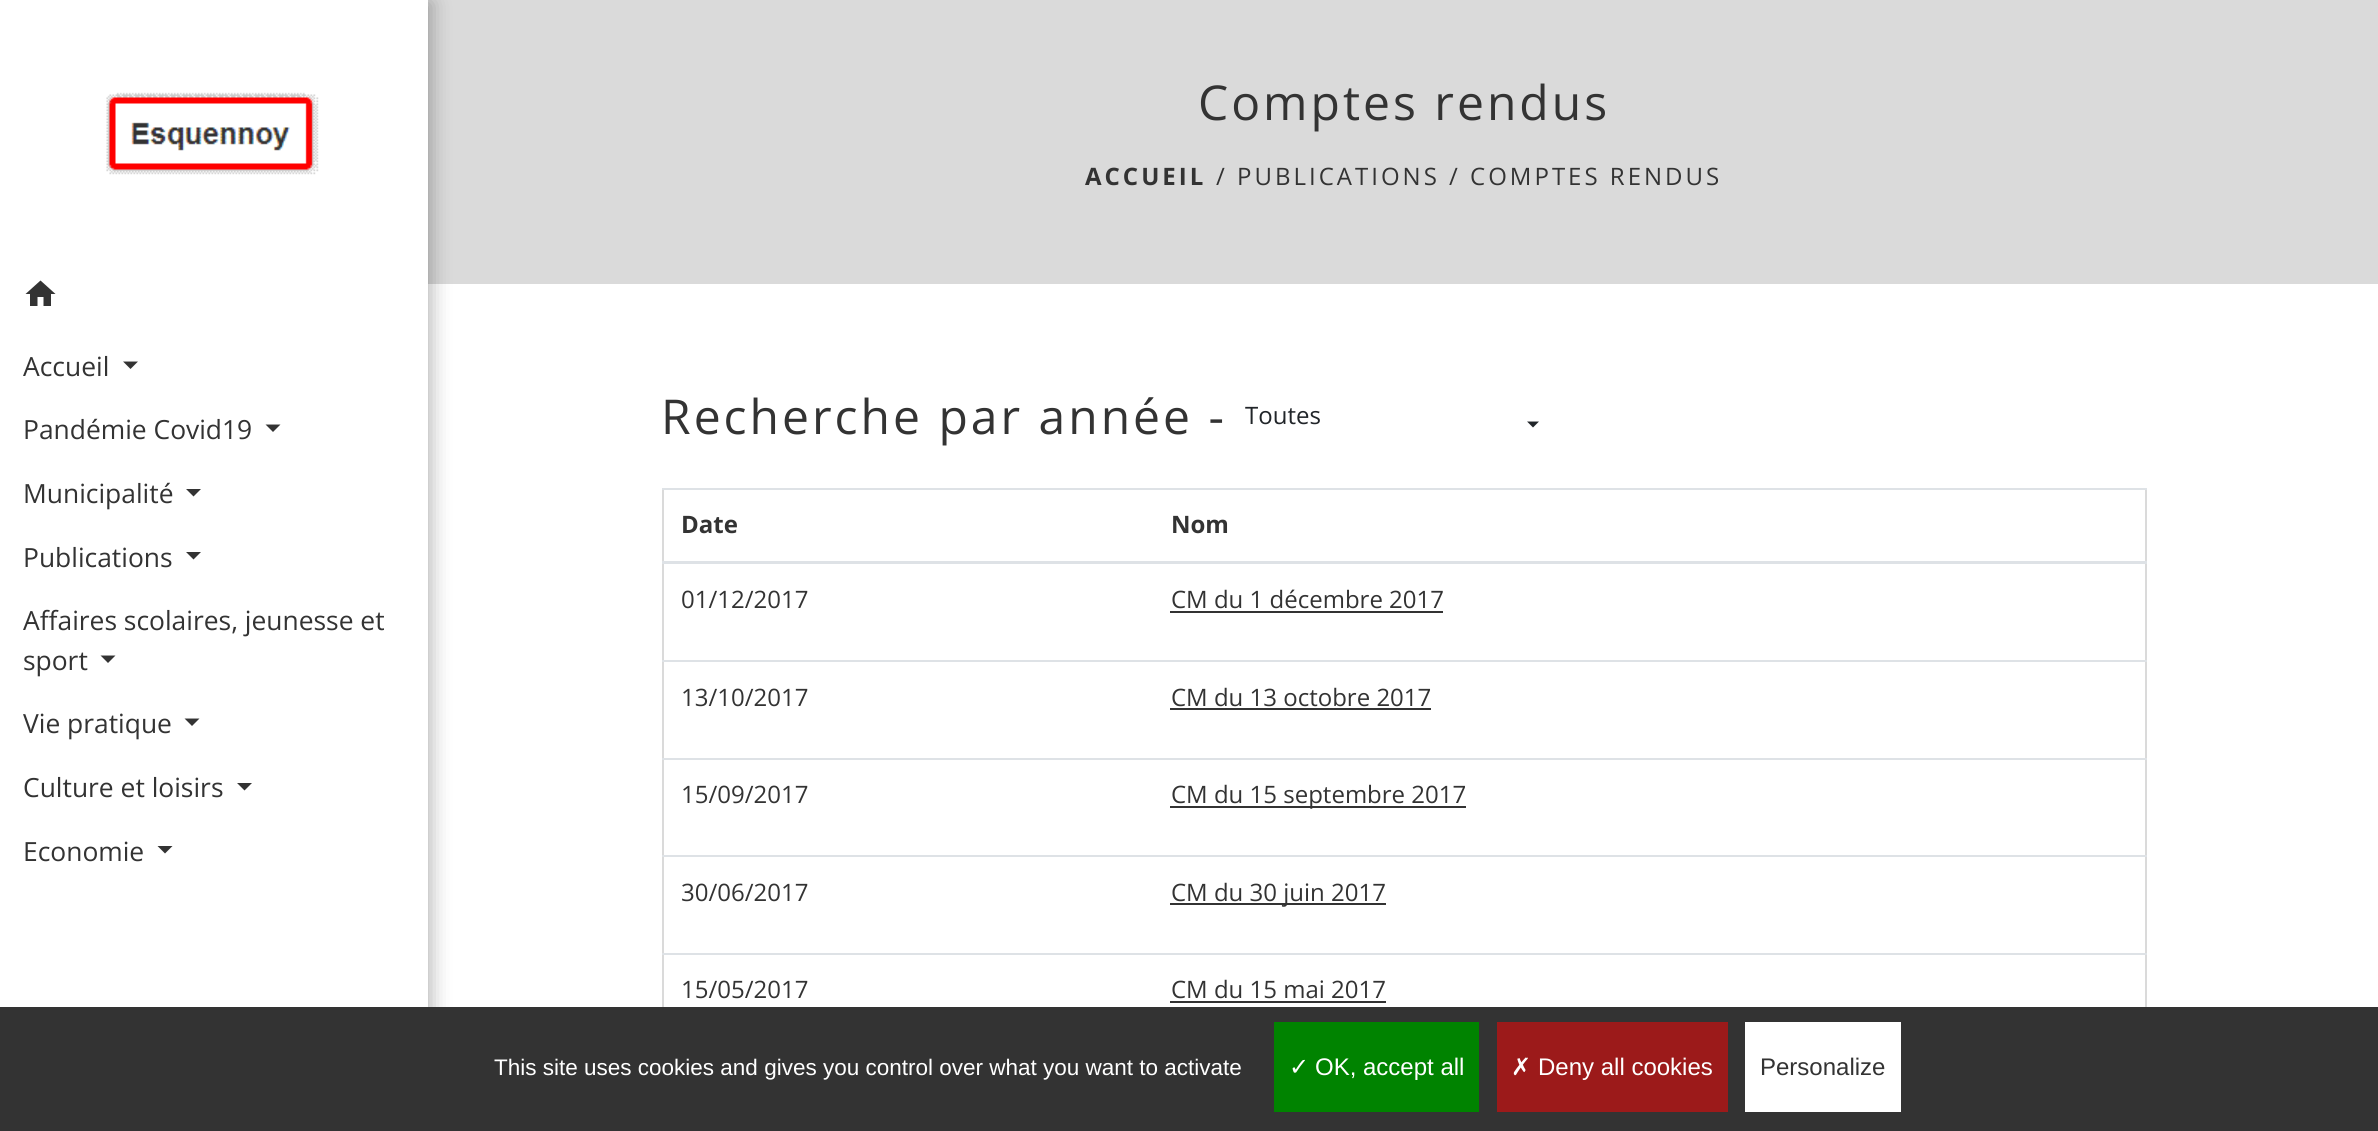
import math
import cairo


def write_spaced(ctx, x, y, s, letter, word):
	ctx.move_to(x, y)
	for ch in s:
		ctx.show_text(ch)
		ctx.rel_move_to(letter + word * (ch == ' '), 0)

def round_path(ctx, x, y, w, h, r):
	ctx.new_sub_path()
	for i, (u, v) in enumerate([(x + w - r, y + h - r), (x + r, y + h - r), (x + r, y + r), (x + w - r, y + r)]):
		ctx.arc(u, v, r, i * math.pi / 2, (i + 1) * math.pi / 2)
	ctx.close_path()

def blur_box(ctx, x, y, w, h, r, blur, alpha):
	ctx.push_group_with_content(cairo.CONTENT_ALPHA)
	ctx.set_operator(cairo.OPERATOR_SOURCE)
	for i in range(15, -16, -2):
		e = blur * i / 6
		if min(w, h) + 2 * e > 0:
			ctx.set_source_rgba(0, 0, 0, alpha * math.erfc((i - 1) / 8.5) / 2)
			round_path(ctx, x - e, y - e, w + 2 * e, h + 2 * e, max(0, min(r + e + blur * .6, min(w, h) / 2 + e)))
			ctx.fill()
	ctx.mask(ctx.pop_group())

def paste(ctx, path, x, y, w, h):
	ctx.save()
	ctx.set_source_surface(cairo.ImageSurface.create_from_png(path), x, y)
	ctx.rectangle(x, y, w, h)
	ctx.fill()
	ctx.restore()

def draw(ctx):
	ctx.set_source_rgb(1, 1, 1)
	ctx.paint()
	ctx.set_source_rgb(0.855, 0.855, 0.855)
	ctx.rectangle(428, 0, 1950, 284)
	ctx.fill()
	ctx.set_source_rgb(0, 0, 0)
	blur_box(ctx, 3, 3, 428, 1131, 0, 10, 0.3)
	ctx.set_source_rgb(1, 1, 1)
	ctx.rectangle(0, 0, 428, 1007)
	ctx.fill()
	paste(ctx, 'media/1.png', 106, 92, 213, 83)
	ctx.set_source_rgb(0.2, 0.2, 0.2)
	ctx.new_path()
	ctx.move_to(37.5, 306)
	ctx.line_to(30, 306)
	ctx.line_to(30, 294)
	ctx.line_to(25.5, 294)
	ctx.line_to(40.5, 280.5)
	ctx.line_to(55.5, 294)
	ctx.line_to(51, 294)
	ctx.line_to(51, 306)
	ctx.line_to(43.5, 306)
	ctx.line_to(43.5, 297)
	ctx.line_to(37.5, 297)
	ctx.close_path()
	ctx.fill()
	ctx.select_font_face('Open Sans')
	ctx.set_font_size(26.4)
	ctx.move_to(23, 376)
	ctx.show_text('Accueil')
	ctx.new_path()
	ctx.move_to(123, 361.5)
	ctx.line_to(138, 361.5)
	ctx.line_to(130.5, 369)
	ctx.close_path()
	ctx.fill()
	ctx.move_to(23, 439)
	ctx.show_text('Pandémie Covid19')
	ctx.new_path()
	ctx.move_to(265.5, 424.5)
	ctx.line_to(280.5, 424.5)
	ctx.line_to(273, 432)
	ctx.close_path()
	ctx.fill()
	ctx.move_to(23, 503)
	ctx.show_text('Municipalité')
	ctx.new_path()
	ctx.move_to(186, 489)
	ctx.line_to(201, 489)
	ctx.line_to(193.5, 496.5)
	ctx.close_path()
	ctx.fill()
	ctx.move_to(23, 567)
	ctx.show_text('Publications')
	ctx.new_path()
	ctx.move_to(186, 552)
	ctx.line_to(201, 552)
	ctx.line_to(193.5, 559.5)
	ctx.close_path()
	ctx.fill()
	ctx.move_to(23, 630)
	ctx.show_text('Affaires scolaires, jeunesse et')
	ctx.move_to(23, 670)
	ctx.show_text('sport')
	ctx.new_path()
	ctx.move_to(100.5, 655.5)
	ctx.line_to(115.5, 655.5)
	ctx.line_to(108, 663)
	ctx.close_path()
	ctx.fill()
	ctx.move_to(23, 733)
	ctx.show_text('Vie pratique')
	ctx.new_path()
	ctx.move_to(184.5, 718.5)
	ctx.line_to(199.5, 718.5)
	ctx.line_to(192, 726)
	ctx.close_path()
	ctx.fill()
	ctx.move_to(23, 797)
	ctx.show_text('Culture et loisirs')
	ctx.new_path()
	ctx.move_to(237, 783)
	ctx.line_to(252, 783)
	ctx.line_to(244.5, 790.5)
	ctx.close_path()
	ctx.fill()
	ctx.move_to(23, 861)
	ctx.show_text('Economie')
	ctx.new_path()
	ctx.move_to(157.5, 846)
	ctx.line_to(172.5, 846)
	ctx.line_to(165, 853.5)
	ctx.close_path()
	ctx.fill()
	ctx.set_font_size(48)
	write_spaced(ctx, 1198, 120, 'Comptes rendus', 3, 0)
	ctx.select_font_face('Open Sans', cairo.FONT_SLANT_NORMAL, cairo.FONT_WEIGHT_BOLD)
	ctx.set_font_size(24)
	write_spaced(ctx, 1085, 185, 'ACCUEIL', 3, 0)
	ctx.select_font_face('Open Sans')
	write_spaced(ctx, 1216, 185, '/ PUBLICATIONS / COMPTES RENDUS', 3, 0)
	ctx.set_font_size(48)
	write_spaced(ctx, 661, 434, 'Recherche par année -', 3, 0)
	ctx.set_font_size(24)
	ctx.set_source_rgb(0.129, 0.145, 0.161)
	ctx.move_to(1245, 424)
	ctx.show_text('Toutes')
	ctx.new_path()
	ctx.move_to(1527, 421.5)
	ctx.line_to(1539, 421.5)
	ctx.line_to(1533, 427.5)
	ctx.close_path()
	ctx.fill()
	ctx.set_source_rgb(0.855, 0.855, 0.855)
	ctx.rectangle(2145, 488, 2, 519)
	ctx.fill()
	ctx.rectangle(662, 488, 2, 519)
	ctx.fill()
	ctx.select_font_face('Open Sans', cairo.FONT_SLANT_NORMAL, cairo.FONT_WEIGHT_BOLD)
	ctx.set_source_rgb(0.2, 0.2, 0.2)
	ctx.move_to(681, 533)
	ctx.show_text('Date')
	ctx.set_source_rgb(0.871, 0.886, 0.902)
	ctx.rectangle(662, 488, 1485, 2)
	ctx.fill()
	ctx.rectangle(662, 561, 1485, 3)
	ctx.fill()
	ctx.set_source_rgb(0.2, 0.2, 0.2)
	ctx.move_to(1171, 533)
	ctx.show_text('Nom')
	ctx.select_font_face('Open Sans')
	ctx.move_to(681, 608)
	ctx.show_text('01/12/2017')
	ctx.move_to(1171, 608)
	ctx.show_text('CM du 1 décembre 2017')
	ctx.rectangle(1170, 611, 273, 2)
	ctx.fill()
	ctx.move_to(681, 706)
	ctx.show_text('13/10/2017')
	ctx.set_source_rgb(0.871, 0.886, 0.902)
	ctx.rectangle(662, 660, 1485, 2)
	ctx.fill()
	ctx.set_source_rgb(0.2, 0.2, 0.2)
	ctx.move_to(1171, 706)
	ctx.show_text('CM du 13 octobre 2017')
	ctx.rectangle(1170, 708, 261, 2)
	ctx.fill()
	ctx.move_to(681, 803)
	ctx.show_text('15/09/2017')
	ctx.set_source_rgb(0.871, 0.886, 0.902)
	ctx.rectangle(662, 758, 1485, 2)
	ctx.fill()
	ctx.set_source_rgb(0.2, 0.2, 0.2)
	ctx.rectangle(1170, 806, 296, 2)
	ctx.fill()
	ctx.move_to(1171, 803)
	ctx.show_text('CM du 15 septembre 2017')
	ctx.move_to(681, 901)
	ctx.show_text('30/06/2017')
	ctx.set_source_rgb(0.871, 0.886, 0.902)
	ctx.rectangle(662, 855, 1485, 2)
	ctx.fill()
	ctx.set_source_rgb(0.2, 0.2, 0.2)
	ctx.rectangle(1170, 903, 216, 2)
	ctx.fill()
	ctx.move_to(1171, 901)
	ctx.show_text('CM du 30 juin 2017')
	ctx.move_to(681, 998)
	ctx.show_text('15/05/2017')
	ctx.set_source_rgb(0.871, 0.886, 0.902)
	ctx.rectangle(662, 953, 1485, 2)
	ctx.fill()
	ctx.set_source_rgb(0.2, 0.2, 0.2)
	ctx.move_to(1171, 998)
	ctx.show_text('CM du 15 mai 2017')
	ctx.rectangle(1170, 1001, 216, 2)
	ctx.fill()
	ctx.rectangle(0, 1007, 2378, 124)
	ctx.fill()
	ctx.select_font_face('Liberation Sans')
	ctx.set_font_size(22.5)
	ctx.set_source_rgb(1, 1, 1)
	ctx.move_to(494, 1075)
	ctx.show_text('This site uses cookies and gives you control over what you want to activate')
	ctx.set_source_rgb(0, 0.514, 0)
	ctx.rectangle(1274, 1022, 205, 90)
	ctx.fill()
	ctx.select_font_face('DejaVu Sans')
	ctx.set_font_size(24)
	ctx.set_source_rgb(1, 1, 1)
	ctx.move_to(1289, 1075)
	ctx.show_text('✓')
	ctx.select_font_face('Liberation Sans')
	ctx.move_to(1315, 1075)
	ctx.show_text('OK, accept all')
	ctx.set_source_rgb(0.612, 0.102, 0.102)
	ctx.rectangle(1497, 1022, 231, 90)
	ctx.fill()
	ctx.select_font_face('DejaVu Sans')
	ctx.set_source_rgb(1, 1, 1)
	ctx.move_to(1511, 1075)
	ctx.show_text('✗')
	ctx.select_font_face('Liberation Sans')
	ctx.move_to(1538, 1075)
	ctx.show_text('Deny all cookies')
	ctx.rectangle(1745, 1022, 156, 90)
	ctx.fill()
	ctx.set_source_rgb(0.2, 0.2, 0.2)
	ctx.move_to(1760, 1075)
	ctx.show_text('Personalize')


surface = cairo.ImageSurface(cairo.FORMAT_RGB24, 2378, 1131)
ctx = cairo.Context(surface)
options = cairo.FontOptions()
options.set_hint_metrics(cairo.HINT_METRICS_OFF)
options.set_hint_style(cairo.HINT_STYLE_NONE)
ctx.set_font_options(options)
ctx.set_miter_limit(4)
draw(ctx)
surface.write_to_png('image.png')
